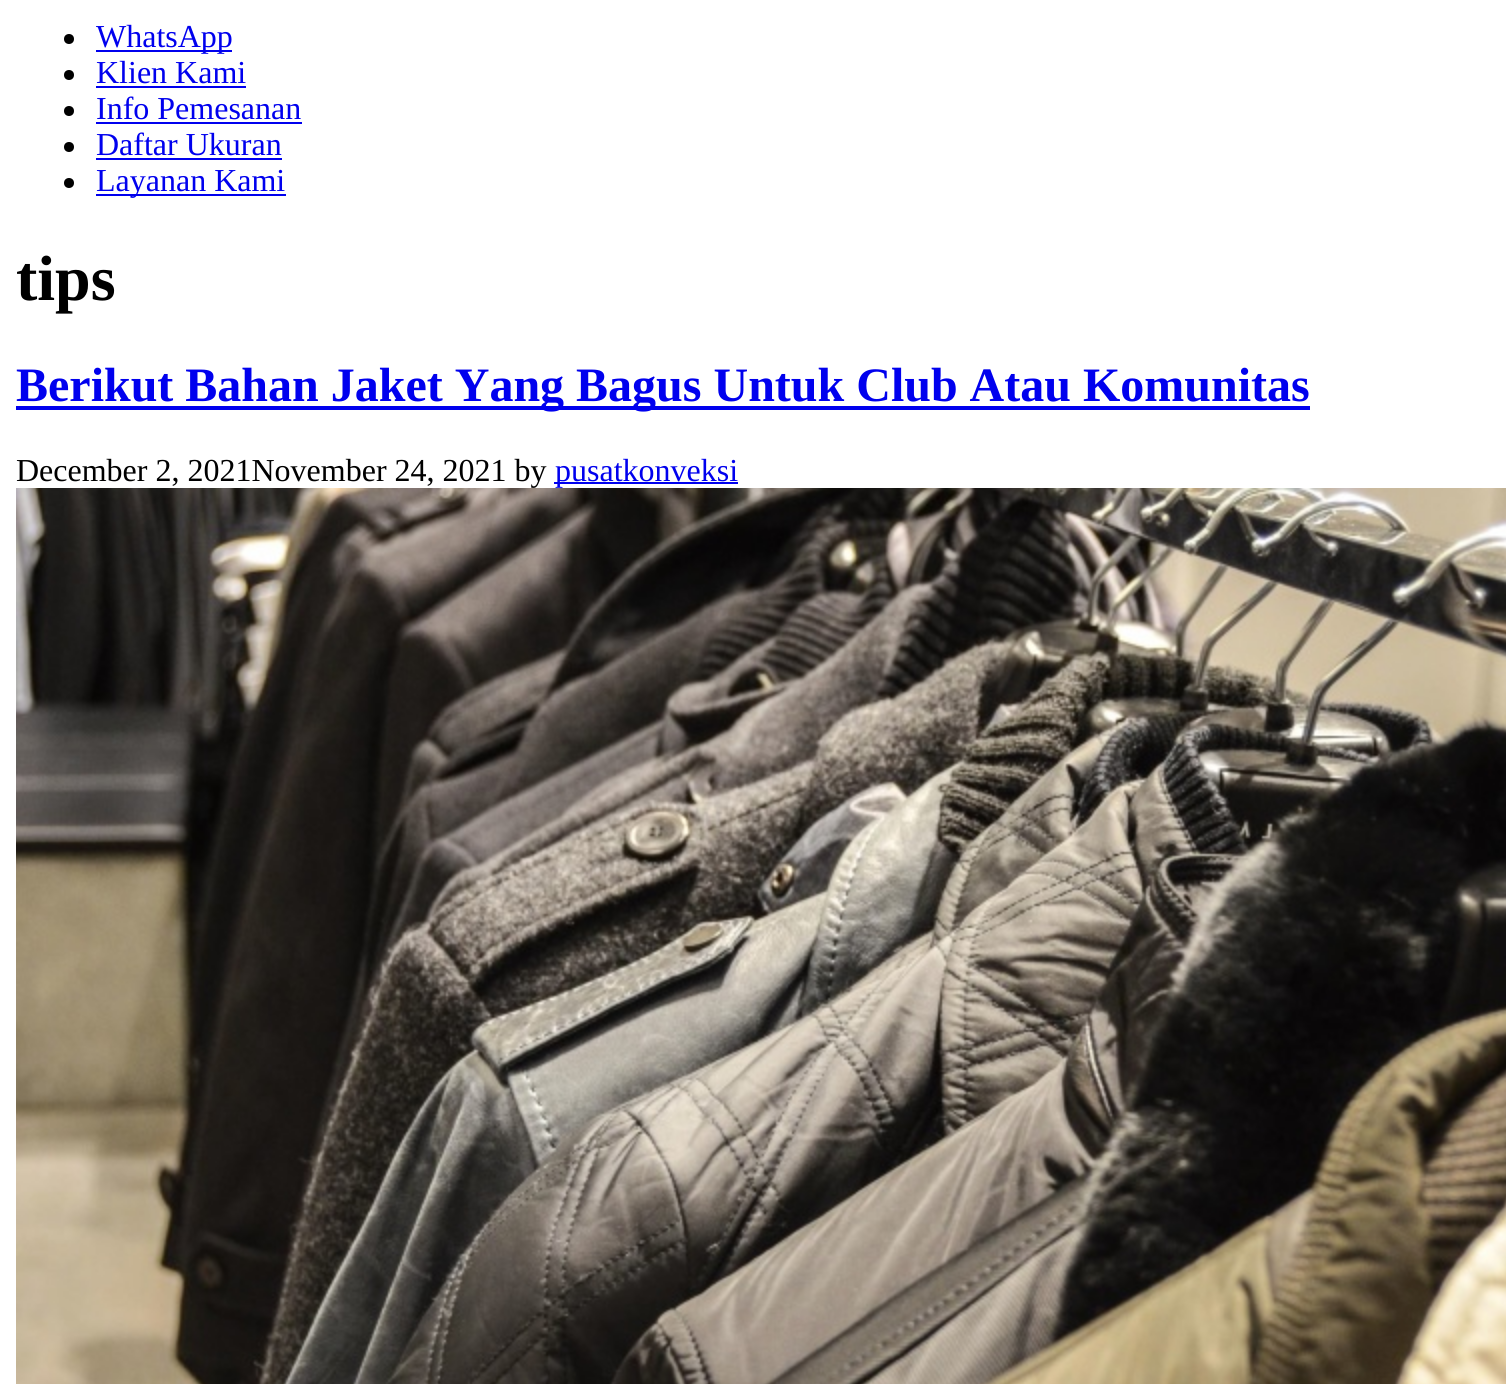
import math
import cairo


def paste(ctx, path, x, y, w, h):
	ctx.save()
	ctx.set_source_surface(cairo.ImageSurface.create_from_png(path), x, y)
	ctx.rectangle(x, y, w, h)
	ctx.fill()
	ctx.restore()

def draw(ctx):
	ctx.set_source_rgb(1, 1, 1)
	ctx.paint()
	ctx.set_source_rgb(0, 0, 0)
	ctx.arc(69, 39, 5, 0, 2 * math.pi)
	ctx.fill()
	ctx.set_source_rgb(0, 0, 0.933)
	ctx.rectangle(96, 50, 136, 2)
	ctx.fill()
	ctx.select_font_face('Liberation Serif')
	ctx.set_font_size(32)
	ctx.move_to(96, 47)
	ctx.show_text('WhatsApp')
	ctx.set_source_rgb(0, 0, 0)
	ctx.new_path()
	ctx.arc(69, 75, 5, 0, 2 * math.pi)
	ctx.fill()
	ctx.set_source_rgb(0, 0, 0.933)
	ctx.move_to(96, 83)
	ctx.show_text('Klien Kami')
	ctx.rectangle(96, 86, 150, 2)
	ctx.fill()
	ctx.set_source_rgb(0, 0, 0)
	ctx.arc(69, 111, 5, 0, 2 * math.pi)
	ctx.fill()
	ctx.set_source_rgb(0, 0, 0.933)
	ctx.move_to(96, 119)
	ctx.show_text('Info Pemesanan')
	ctx.rectangle(96, 122, 206, 2)
	ctx.fill()
	ctx.set_source_rgb(0, 0, 0)
	ctx.arc(69, 147, 5, 0, 2 * math.pi)
	ctx.fill()
	ctx.set_source_rgb(0, 0, 0.933)
	ctx.move_to(96, 155)
	ctx.show_text('Daftar Ukuran')
	ctx.rectangle(96, 158, 186, 2)
	ctx.fill()
	ctx.set_source_rgb(0, 0, 0)
	ctx.arc(69, 183, 5, 0, 2 * math.pi)
	ctx.fill()
	ctx.set_source_rgb(0, 0, 0.933)
	ctx.rectangle(96, 194, 190, 2)
	ctx.fill()
	ctx.move_to(96, 191)
	ctx.show_text('Layanan Kami')
	ctx.select_font_face('Liberation Serif', cairo.FONT_SLANT_NORMAL, cairo.FONT_WEIGHT_BOLD)
	ctx.set_font_size(64)
	ctx.set_source_rgb(0, 0, 0)
	ctx.move_to(16, 300)
	ctx.show_text('tips')
	ctx.set_source_rgb(0, 0, 0.933)
	ctx.rectangle(16, 406, 1294, 4)
	ctx.fill()
	ctx.set_font_size(48)
	ctx.move_to(16, 401)
	ctx.show_text('Berikut Bahan Jaket Yang Bagus Untuk Club Atau Komunitas')
	ctx.select_font_face('Liberation Serif')
	ctx.set_font_size(32)
	ctx.set_source_rgb(0, 0, 0)
	ctx.move_to(16, 481)
	ctx.show_text('December 2, 2021November 24, 2021 by')
	ctx.set_source_rgb(0, 0, 0.933)
	ctx.rectangle(554, 482, 184, 2)
	ctx.fill()
	ctx.move_to(555, 481)
	ctx.show_text('pusatkonveksi')
	paste(ctx, 'media/1.png', 16, 488, 1490, 896)


surface = cairo.ImageSurface(cairo.FORMAT_RGB24, 1506, 1384)
ctx = cairo.Context(surface)
options = cairo.FontOptions()
options.set_hint_metrics(cairo.HINT_METRICS_OFF)
options.set_hint_style(cairo.HINT_STYLE_NONE)
ctx.set_font_options(options)
ctx.set_miter_limit(4)
draw(ctx)
surface.write_to_png('image.png')
